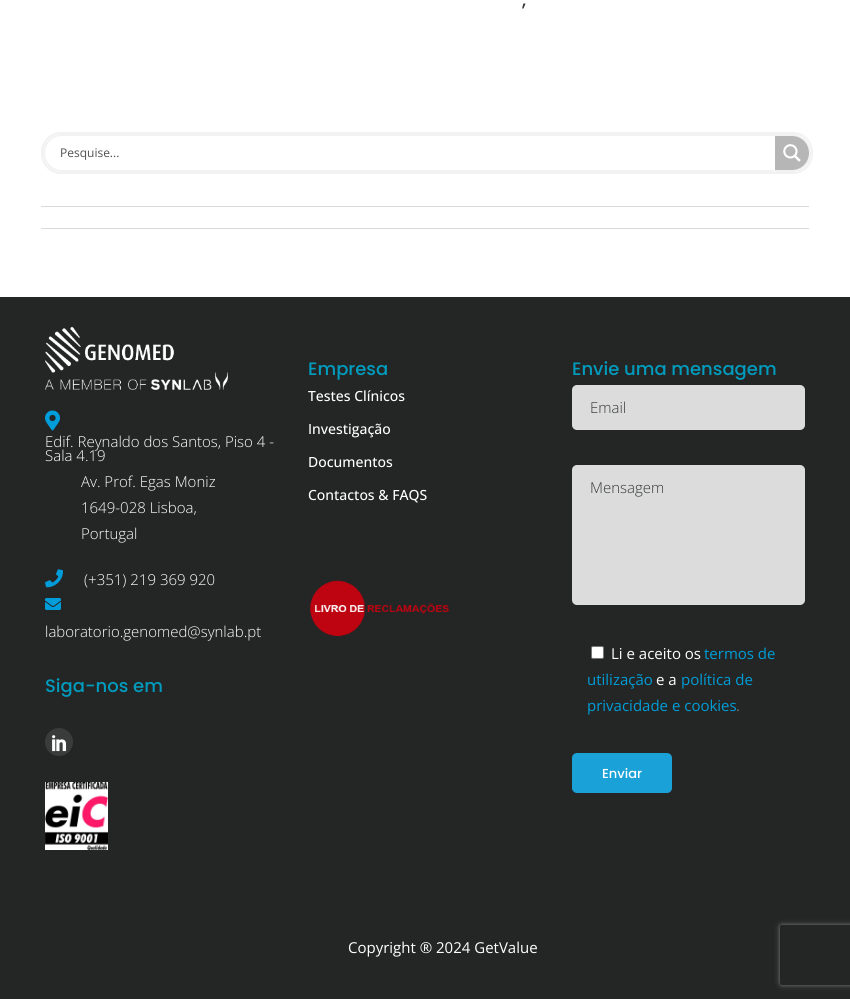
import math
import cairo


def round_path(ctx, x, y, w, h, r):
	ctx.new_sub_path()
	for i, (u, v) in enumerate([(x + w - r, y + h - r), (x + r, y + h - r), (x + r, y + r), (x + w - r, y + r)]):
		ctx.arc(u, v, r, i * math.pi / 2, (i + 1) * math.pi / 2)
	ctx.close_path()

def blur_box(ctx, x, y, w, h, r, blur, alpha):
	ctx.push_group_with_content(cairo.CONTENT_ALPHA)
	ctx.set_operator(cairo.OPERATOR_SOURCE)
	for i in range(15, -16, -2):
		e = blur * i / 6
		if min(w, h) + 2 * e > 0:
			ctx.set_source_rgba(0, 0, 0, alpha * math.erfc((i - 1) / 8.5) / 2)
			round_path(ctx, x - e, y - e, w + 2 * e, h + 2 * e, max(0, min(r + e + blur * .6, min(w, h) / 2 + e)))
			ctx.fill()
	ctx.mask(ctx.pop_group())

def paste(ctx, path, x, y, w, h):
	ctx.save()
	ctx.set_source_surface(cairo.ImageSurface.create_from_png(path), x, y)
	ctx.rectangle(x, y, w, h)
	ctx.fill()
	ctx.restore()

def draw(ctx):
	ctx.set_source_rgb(1, 1, 1)
	ctx.paint()
	ctx.select_font_face('Poppins Medium')
	ctx.set_font_size(18)
	ctx.set_source_rgb(0.2, 0.2, 0.2)
	ctx.move_to(522, 6)
	ctx.show_text(',')
	round_path(ctx, 42, 133, 770, 40, 19)
	ctx.set_source_rgb(0.949, 0.949, 0.949)
	ctx.stroke()
	round_path(ctx, 44, 135, 766, 36, 18)
	ctx.stroke()
	ctx.select_font_face('Open Sans')
	ctx.set_font_size(12)
	ctx.set_source_rgb(0.322, 0.322, 0.322)
	ctx.move_to(60, 157)
	ctx.show_text('Pesquise...')
	ctx.set_source_rgb(0.714, 0.714, 0.714)
	ctx.new_path()
	ctx.move_to(775, 136)
	ctx.line_to(792, 136)
	ctx.curve_to(801.5, 136, 809, 143.5, 809, 153)
	ctx.curve_to(809, 162.5, 801.5, 170, 792, 170)
	ctx.line_to(775, 170)
	ctx.close_path()
	ctx.fill()
	paste(ctx, 'media/1.png', 783, 144, 18, 18)
	ctx.set_source_rgb(0.855, 0.855, 0.855)
	ctx.rectangle(41, 206, 768, 1)
	ctx.rectangle(41, 228, 768, 1)
	ctx.fill()
	ctx.set_source_rgb(0.141, 0.145, 0.145)
	ctx.rectangle(0, 297, 850, 618)
	ctx.fill()
	paste(ctx, 'media/2.png', 45, 327, 183, 63)
	paste(ctx, 'media/3.png', 45, 410, 15, 21)
	ctx.select_font_face('Open Sans Light')
	ctx.set_font_size(15)
	ctx.set_source_rgb(1, 1, 1)
	for x, y, s in [
		(45, 447, 'Edif. Reynaldo dos Santos, Piso 4 -'),
		(45, 461, 'Sala 4.19'),
		(81, 487, 'Av. Prof. Egas Moniz'),
		(81, 513, '1649-028 Lisboa,'),
		(81, 539, 'Portugal'),
	]:
		ctx.move_to(x, y)
		ctx.show_text(s)
	paste(ctx, 'media/4.png', 45, 569, 18, 19)
	ctx.move_to(84, 585)
	ctx.show_text('(+351) 219 369 920')
	paste(ctx, 'media/5.png', 45, 598, 16, 12)
	ctx.move_to(45, 637)
	ctx.show_text('laboratorio.genomed@synlab.pt')
	ctx.select_font_face('Poppins Medium')
	ctx.set_font_size(18)
	ctx.set_source_rgb(0, 0.608, 0.741)
	ctx.move_to(45, 692)
	ctx.show_text('Siga-nos em')
	ctx.set_source_rgb(0.227, 0.235, 0.235)
	ctx.new_path()
	ctx.arc(59, 742, 14, 0, 2 * math.pi)
	ctx.fill()
	paste(ctx, 'media/6.png', 52, 735, 15, 17)
	paste(ctx, 'media/7.png', 45, 782, 63, 68)
	ctx.set_source_rgb(0, 0.608, 0.741)
	ctx.move_to(308, 375)
	ctx.show_text('Empresa')
	ctx.select_font_face('Open Sans Medium')
	ctx.set_font_size(14)
	ctx.set_source_rgb(1, 1, 1)
	for x, y, s in [
		(308, 401, 'Testes Clínicos'),
		(308, 434, 'Investigação'),
		(308, 467, 'Documentos'),
		(308, 500, 'Contactos & FAQS'),
	]:
		ctx.move_to(x, y)
		ctx.show_text(s)
	paste(ctx, 'media/8.png', 310, 580, 140, 56)
	ctx.select_font_face('Poppins Medium')
	ctx.set_font_size(18)
	ctx.set_source_rgb(0, 0.608, 0.741)
	ctx.move_to(572, 375)
	ctx.show_text('Envie uma mensagem')
	ctx.set_source_rgb(0.863, 0.863, 0.863)
	round_path(ctx, 572, 385, 233, 45, 5)
	ctx.fill()
	ctx.select_font_face('Open Sans Light')
	ctx.set_font_size(15)
	ctx.set_source_rgb(0.208, 0.22, 0.224)
	ctx.move_to(590, 413)
	ctx.show_text('Email')
	ctx.set_source_rgb(0.863, 0.863, 0.863)
	round_path(ctx, 572, 465, 233, 140, 5)
	ctx.fill()
	ctx.set_source_rgb(0.208, 0.22, 0.224)
	ctx.move_to(590, 493)
	ctx.show_text('Mensagem')
	ctx.set_source_rgb(1, 1, 1)
	round_path(ctx, 591.5, 646.5, 12, 12, 1.5)
	ctx.fill_preserve()
	ctx.set_source_rgb(0.463, 0.463, 0.463)
	ctx.set_line_width(1)
	ctx.stroke()
	ctx.select_font_face('Open Sans')
	ctx.set_source_rgb(1, 1, 1)
	ctx.move_to(611, 659)
	ctx.show_text('Li e aceito os')
	ctx.set_source_rgb(0, 0.616, 0.843)
	ctx.move_to(704, 659)
	ctx.show_text('termos de')
	ctx.move_to(587, 685)
	ctx.show_text('utilização')
	ctx.set_source_rgb(1, 1, 1)
	ctx.move_to(656, 685)
	ctx.show_text('e a')
	ctx.set_source_rgb(0, 0.616, 0.843)
	ctx.move_to(681, 685)
	ctx.show_text('política de')
	ctx.move_to(587, 711)
	ctx.show_text('privacidade e cookies')
	ctx.set_source_rgb(0.431, 0.431, 0.431)
	ctx.move_to(736, 711)
	ctx.show_text('.')
	ctx.set_source_rgb(0.102, 0.635, 0.847)
	round_path(ctx, 572, 753, 100, 40, 5)
	ctx.fill()
	ctx.select_font_face('Poppins Medium')
	ctx.set_font_size(13)
	ctx.set_source_rgb(1, 1, 1)
	ctx.move_to(602, 778)
	ctx.show_text('Enviar')
	ctx.set_source_rgb(0.141, 0.149, 0.149)
	ctx.rectangle(0, 915, 850, 84)
	ctx.fill()
	ctx.select_font_face('Open Sans')
	ctx.set_font_size(15)
	ctx.set_source_rgb(1, 1, 1)
	ctx.move_to(348, 953)
	ctx.show_text('Copyright ® 2024 GetValue')
	ctx.save()
	ctx.set_fill_rule(cairo.FILL_RULE_EVEN_ODD)
	ctx.new_path()
	ctx.move_to(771, 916)
	ctx.line_to(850, 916)
	ctx.line_to(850, 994)
	ctx.line_to(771, 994)
	ctx.close_path()
	ctx.move_to(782, 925)
	ctx.line_to(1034, 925)
	ctx.curve_to(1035, 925, 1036, 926, 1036, 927)
	ctx.line_to(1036, 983)
	ctx.curve_to(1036, 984, 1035, 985, 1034, 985)
	ctx.line_to(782, 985)
	ctx.curve_to(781, 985, 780, 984, 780, 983)
	ctx.line_to(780, 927)
	ctx.curve_to(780, 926, 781, 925, 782, 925)
	ctx.close_path()
	ctx.clip()
	ctx.set_source_rgb(0.502, 0.502, 0.502)
	blur_box(ctx, 780, 925, 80, 60, 2, 2.5, 1)
	ctx.restore()


surface = cairo.ImageSurface(cairo.FORMAT_RGB24, 850, 999)
ctx = cairo.Context(surface)
options = cairo.FontOptions()
options.set_hint_metrics(cairo.HINT_METRICS_OFF)
options.set_hint_style(cairo.HINT_STYLE_NONE)
ctx.set_font_options(options)
ctx.set_miter_limit(4)
draw(ctx)
surface.write_to_png('image.png')
